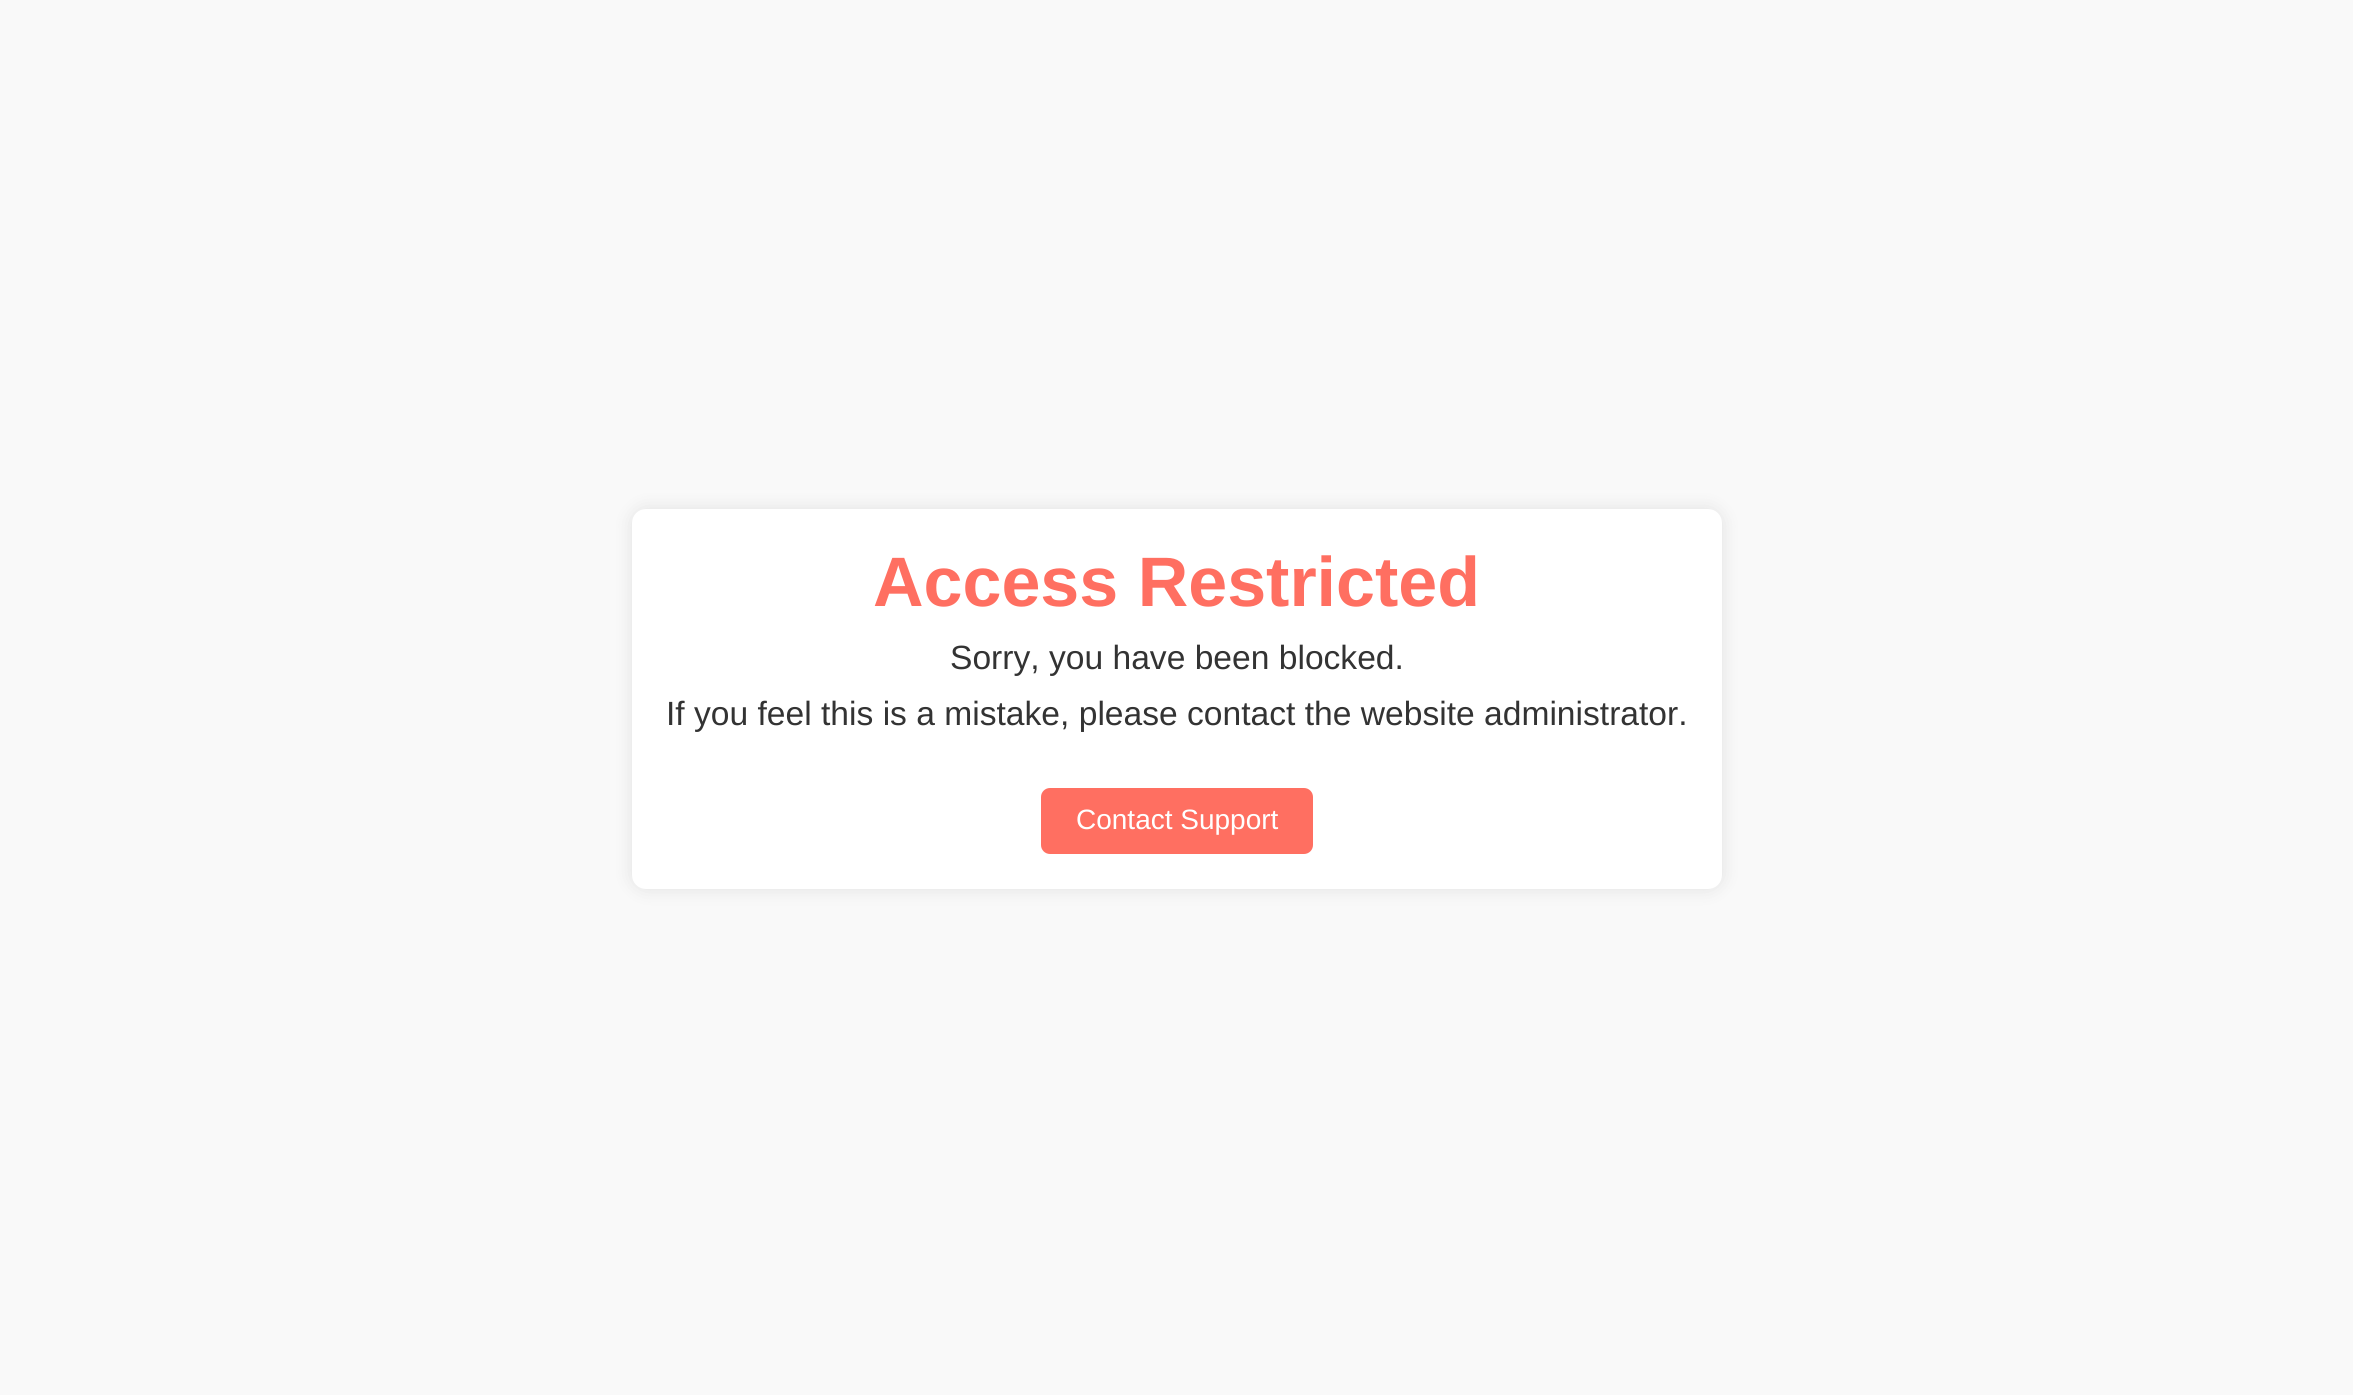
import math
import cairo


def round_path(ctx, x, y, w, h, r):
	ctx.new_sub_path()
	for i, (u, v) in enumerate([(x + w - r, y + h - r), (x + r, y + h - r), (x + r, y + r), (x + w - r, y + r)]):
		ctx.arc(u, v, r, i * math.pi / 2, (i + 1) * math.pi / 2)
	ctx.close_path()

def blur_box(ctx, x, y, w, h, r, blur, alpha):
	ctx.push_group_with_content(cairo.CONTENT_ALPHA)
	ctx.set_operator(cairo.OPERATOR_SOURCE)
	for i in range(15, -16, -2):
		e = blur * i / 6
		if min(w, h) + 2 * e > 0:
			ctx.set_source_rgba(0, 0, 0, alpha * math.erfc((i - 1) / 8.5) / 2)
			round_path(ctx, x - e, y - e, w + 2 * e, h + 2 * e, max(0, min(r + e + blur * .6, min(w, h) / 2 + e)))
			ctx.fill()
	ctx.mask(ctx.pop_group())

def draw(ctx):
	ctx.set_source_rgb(0.973, 0.973, 0.973)
	ctx.paint()
	ctx.set_source_rgb(0, 0, 0)
	blur_box(ctx, 632, 509, 1090, 380, 14, 9, 0.1)
	ctx.set_source_rgb(1, 1, 1)
	round_path(ctx, 632, 509, 1090, 380, 14)
	ctx.fill()
	ctx.select_font_face('Liberation Sans', cairo.FONT_SLANT_NORMAL, cairo.FONT_WEIGHT_BOLD)
	ctx.set_font_size(70)
	ctx.set_source_rgb(1, 0.435, 0.38)
	ctx.move_to(873, 606)
	ctx.show_text('Access Restricted')
	ctx.select_font_face('Liberation Sans')
	ctx.set_font_size(33.6)
	ctx.set_source_rgb(0.2, 0.2, 0.2)
	ctx.move_to(950, 669)
	ctx.show_text('Sorry, you have been blocked.')
	ctx.move_to(666, 725)
	ctx.show_text('If you feel this is a mistake, please contact the website administrator.')
	ctx.set_source_rgb(1, 0.435, 0.38)
	round_path(ctx, 1041, 788, 272, 66, 9)
	ctx.fill()
	ctx.set_font_size(28)
	ctx.set_source_rgb(1, 1, 1)
	ctx.move_to(1076, 829)
	ctx.show_text('Contact Support')


surface = cairo.ImageSurface(cairo.FORMAT_RGB24, 2353, 1395)
ctx = cairo.Context(surface)
options = cairo.FontOptions()
options.set_hint_metrics(cairo.HINT_METRICS_OFF)
options.set_hint_style(cairo.HINT_STYLE_NONE)
ctx.set_font_options(options)
ctx.set_miter_limit(4)
draw(ctx)
surface.write_to_png('image.png')
